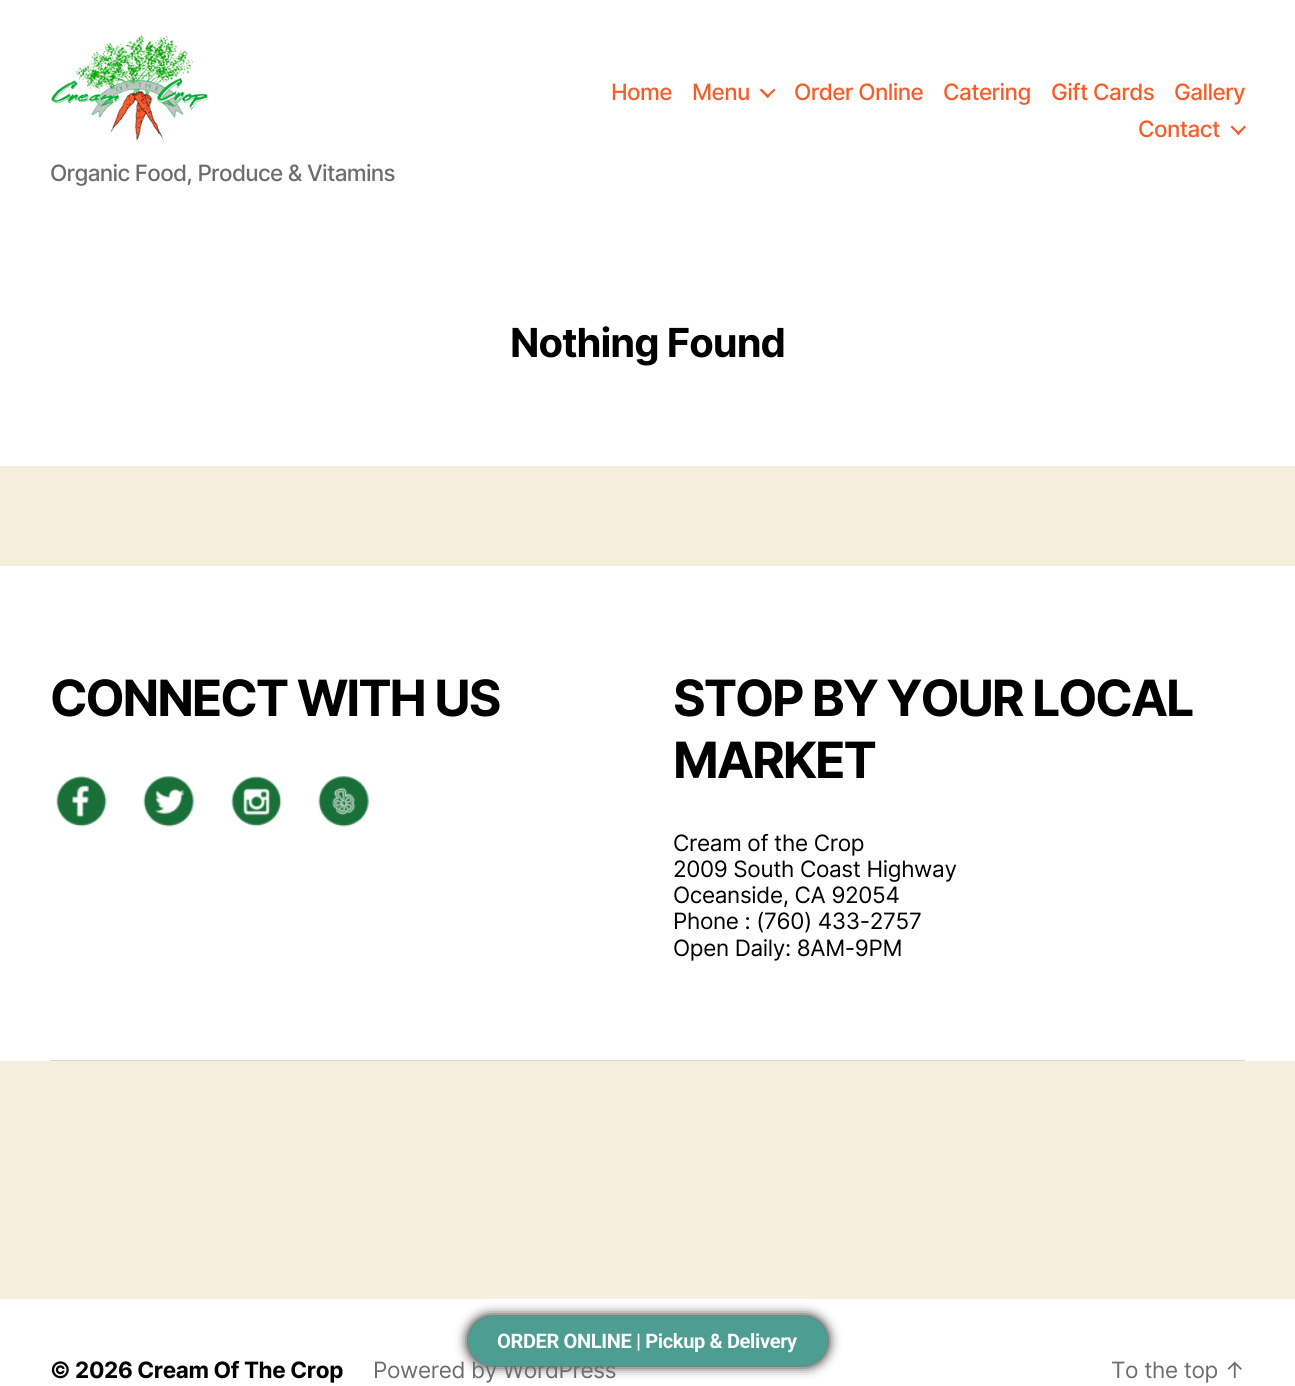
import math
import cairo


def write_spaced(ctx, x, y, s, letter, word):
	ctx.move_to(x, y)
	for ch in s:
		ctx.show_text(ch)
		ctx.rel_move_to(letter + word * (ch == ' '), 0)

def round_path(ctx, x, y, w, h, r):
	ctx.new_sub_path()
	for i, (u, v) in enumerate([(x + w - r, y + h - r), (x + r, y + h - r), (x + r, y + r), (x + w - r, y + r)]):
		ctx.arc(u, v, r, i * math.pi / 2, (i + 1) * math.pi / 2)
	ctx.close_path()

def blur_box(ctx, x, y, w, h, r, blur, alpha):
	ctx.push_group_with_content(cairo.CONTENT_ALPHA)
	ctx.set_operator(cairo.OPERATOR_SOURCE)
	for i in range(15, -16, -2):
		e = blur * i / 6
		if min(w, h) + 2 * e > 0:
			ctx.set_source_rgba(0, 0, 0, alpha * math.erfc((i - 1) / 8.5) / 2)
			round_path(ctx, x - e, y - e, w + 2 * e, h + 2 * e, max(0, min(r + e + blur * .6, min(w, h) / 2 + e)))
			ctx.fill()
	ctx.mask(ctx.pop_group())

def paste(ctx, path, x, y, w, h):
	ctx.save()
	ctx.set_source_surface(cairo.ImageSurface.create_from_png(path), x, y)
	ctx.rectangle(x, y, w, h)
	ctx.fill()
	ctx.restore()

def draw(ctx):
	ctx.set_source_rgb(0.961, 0.937, 0.878)
	ctx.paint()
	ctx.set_source_rgb(1, 1, 1)
	ctx.rectangle(0, 0, 1295, 466)
	ctx.fill()
	ctx.select_font_face('Inter Medium')
	ctx.set_font_size(22.5)
	ctx.set_source_rgb(0.965, 0.365, 0.161)
	write_spaced(ctx, 611, 100, 'Home', -0.6, 0)
	write_spaced(ctx, 692, 100, 'Menu', -0.6, 0)
	ctx.new_path()
	ctx.move_to(759.5, 90)
	ctx.line_to(761.5, 88.5)
	ctx.line_to(769.5, 96.5)
	ctx.line_to(767.5, 98)
	ctx.close_path()
	ctx.fill()
	ctx.new_path()
	ctx.move_to(766, 96.5)
	ctx.line_to(774, 88.5)
	ctx.line_to(775.5, 90)
	ctx.line_to(767.5, 98)
	ctx.close_path()
	ctx.fill()
	for x, y, s in [
		(794, 100, 'Order Online'),
		(943, 100, 'Catering'),
		(1051, 100, 'Gift Cards'),
		(1174, 100, 'Gallery'),
		(1138, 137, 'Contact'),
	]:
		write_spaced(ctx, x, y, s, -0.6, 0)
	ctx.new_path()
	ctx.move_to(1230.5, 127)
	ctx.line_to(1232, 125.5)
	ctx.line_to(1240, 133.5)
	ctx.line_to(1238.5, 135)
	ctx.close_path()
	ctx.fill()
	ctx.new_path()
	ctx.move_to(1236.5, 133.5)
	ctx.line_to(1244.5, 125.5)
	ctx.line_to(1246, 127)
	ctx.line_to(1238.5, 135)
	ctx.close_path()
	ctx.fill()
	paste(ctx, 'media/1.png', 51, 35, 157, 108)
	ctx.set_source_rgb(0.427, 0.427, 0.427)
	write_spaced(ctx, 50, 181, 'Organic Food, Produce & Vitamins', -0.7, 0)
	ctx.select_font_face('Inter', cairo.FONT_SLANT_NORMAL, cairo.FONT_WEIGHT_BOLD)
	ctx.set_font_size(40)
	ctx.set_source_rgb(0, 0, 0)
	write_spaced(ctx, 510, 357, 'Nothing Found', -1, 0)
	ctx.set_source_rgb(1, 1, 1)
	ctx.rectangle(0, 566, 1295, 495)
	ctx.fill()
	ctx.set_source_rgb(0.863, 0.843, 0.792)
	ctx.rectangle(50, 1060, 1195, 1)
	ctx.fill()
	ctx.set_font_size(50)
	ctx.set_source_rgb(0, 0, 0)
	write_spaced(ctx, 50, 716, 'CONNECT WITH US', -2.1, 0)
	paste(ctx, 'media/2.png', 56, 776, 51, 51)
	paste(ctx, 'media/3.png', 143, 776, 51, 51)
	paste(ctx, 'media/4.png', 231, 776, 51, 51)
	paste(ctx, 'media/5.png', 318, 775, 51, 52)
	write_spaced(ctx, 673, 716, 'STOP BY YOUR LOCAL', -2.1, 0)
	write_spaced(ctx, 673, 778, 'MARKET', -2.1, 0)
	ctx.select_font_face('Inter')
	ctx.set_font_size(22.5)
	for x, y, s in [
		(673, 851, 'Cream of the Crop'),
		(673, 877, '2009 South Coast Highway'),
		(673, 903, 'Oceanside, CA 92054'),
		(673, 929, 'Phone : (760) 433-2757'),
		(673, 956, 'Open Daily: 8AM-9PM'),
	]:
		write_spaced(ctx, x, y, s, -0.35, 0)
	ctx.set_source_rgb(1, 1, 1)
	ctx.rectangle(0, 1299, 1295, 87)
	ctx.fill()
	ctx.set_source_rgb(0, 0, 0)
	blur_box(ctx, 468, 1316, 360, 50, 25, 6, 1)
	ctx.set_source_rgb(0.427, 0.427, 0.427)
	write_spaced(ctx, 373, 1378, 'Powered by WordPress', -0.35, 0)
	ctx.set_source_rgb(0.302, 0.616, 0.573)
	round_path(ctx, 468, 1316, 360, 50, 25)
	ctx.fill()
	ctx.select_font_face('Roboto', cairo.FONT_SLANT_NORMAL, cairo.FONT_WEIGHT_BOLD)
	ctx.set_font_size(20)
	ctx.set_source_rgb(1, 1, 1)
	write_spaced(ctx, 497, 1348, 'ORDER ONLINE | Pickup & Delivery', -0.35, 0)
	ctx.select_font_face('Inter', cairo.FONT_SLANT_NORMAL, cairo.FONT_WEIGHT_BOLD)
	ctx.set_font_size(22.5)
	ctx.set_source_rgb(0, 0, 0)
	write_spaced(ctx, 50, 1378, '© 2026 Cream Of The Crop', -0.35, 0)
	ctx.select_font_face('Inter')
	ctx.set_source_rgb(0.427, 0.427, 0.427)
	write_spaced(ctx, 1111, 1378, 'To the top ↑', -0.35, 0)


surface = cairo.ImageSurface(cairo.FORMAT_RGB24, 1295, 1386)
ctx = cairo.Context(surface)
options = cairo.FontOptions()
options.set_hint_metrics(cairo.HINT_METRICS_OFF)
options.set_hint_style(cairo.HINT_STYLE_NONE)
ctx.set_font_options(options)
ctx.set_miter_limit(4)
draw(ctx)
surface.write_to_png('image.png')
